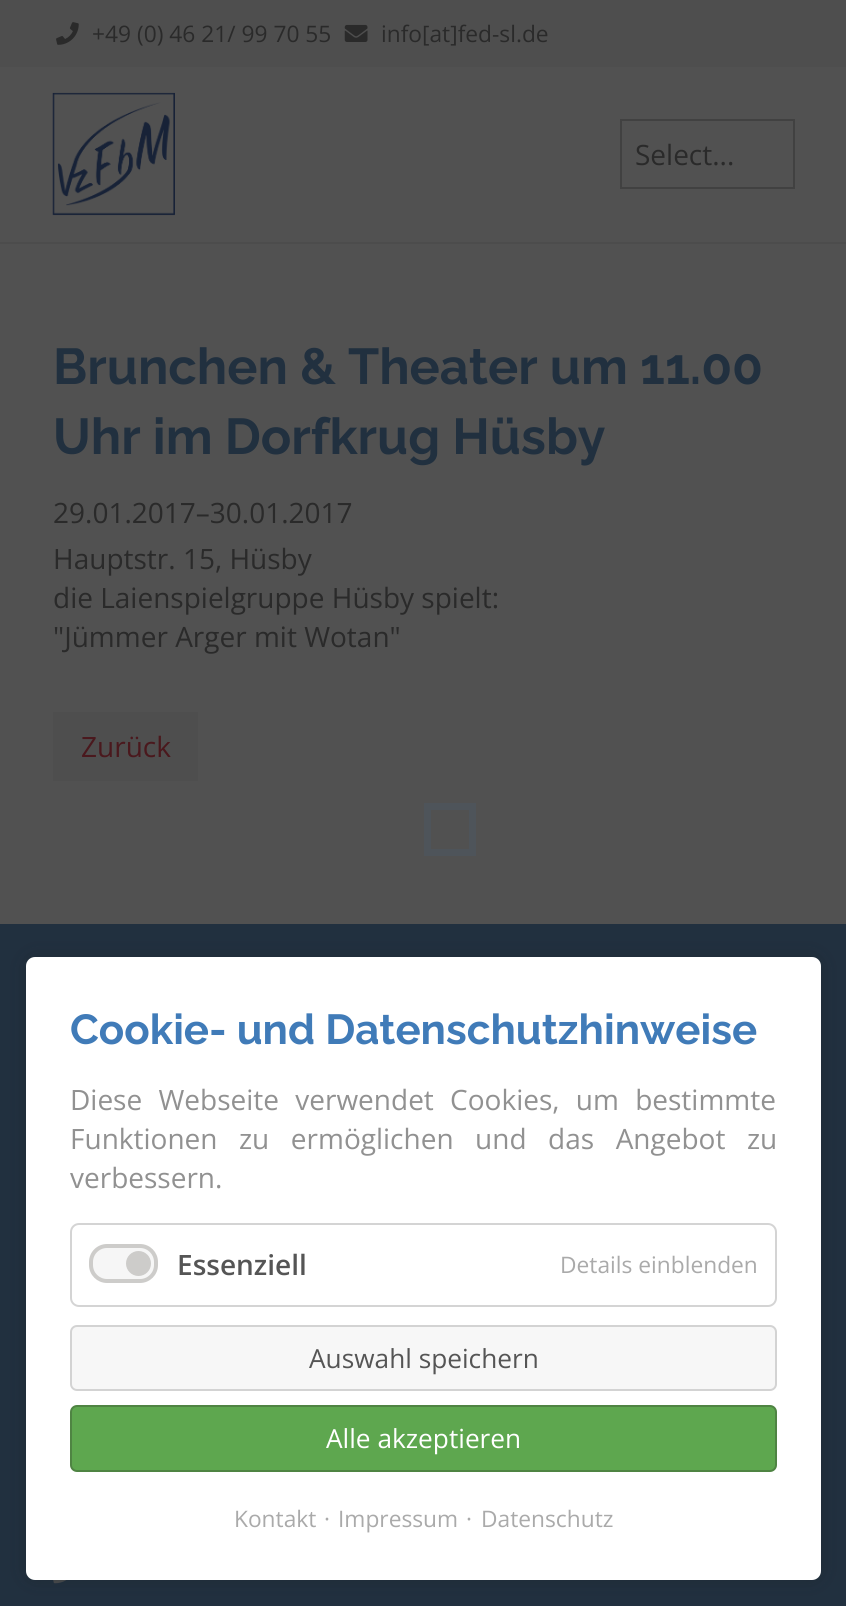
import math
import cairo


def write_spaced(ctx, x, y, s, letter, word):
	ctx.move_to(x, y)
	for ch in s:
		ctx.show_text(ch)
		ctx.rel_move_to(letter + word * (ch == ' '), 0)

def round_path(ctx, x, y, w, h, r):
	ctx.new_sub_path()
	for i, (u, v) in enumerate([(x + w - r, y + h - r), (x + r, y + h - r), (x + r, y + r), (x + w - r, y + r)]):
		ctx.arc(u, v, r, i * math.pi / 2, (i + 1) * math.pi / 2)
	ctx.close_path()

def blur_box(ctx, x, y, w, h, r, blur, alpha):
	ctx.push_group_with_content(cairo.CONTENT_ALPHA)
	ctx.set_operator(cairo.OPERATOR_SOURCE)
	for i in range(15, -16, -2):
		e = blur * i / 6
		if min(w, h) + 2 * e > 0:
			ctx.set_source_rgba(0, 0, 0, alpha * math.erfc((i - 1) / 8.5) / 2)
			round_path(ctx, x - e, y - e, w + 2 * e, h + 2 * e, max(0, min(r + e + blur * .6, min(w, h) / 2 + e)))
			ctx.fill()
	ctx.mask(ctx.pop_group())

def paste(ctx, path, x, y, w, h):
	ctx.save()
	ctx.set_source_surface(cairo.ImageSurface.create_from_png(path), x, y)
	ctx.rectangle(x, y, w, h)
	ctx.fill()
	ctx.restore()

def draw(ctx):
	ctx.set_source_rgb(0.318, 0.318, 0.318)
	ctx.paint()
	ctx.set_source_rgb(0.306, 0.306, 0.306)
	ctx.rectangle(0, 0, 846, 67)
	ctx.fill()
	paste(ctx, 'media/1.png', 56, 22, 23, 23)
	ctx.select_font_face('Open Sans')
	ctx.set_font_size(22.75)
	ctx.set_source_rgb(0.165, 0.165, 0.165)
	ctx.move_to(92, 42)
	ctx.show_text('+49 (0) 46 21/ 99 70 55')
	paste(ctx, 'media/2.png', 344, 24, 24, 18)
	ctx.move_to(381, 42)
	ctx.show_text('info[at]fed-sl.de')
	ctx.set_source_rgb(0.298, 0.298, 0.298)
	ctx.rectangle(0, 242, 846, 2)
	ctx.fill()
	paste(ctx, 'media/3.png', 52, 92, 123, 124)
	ctx.rectangle(621, 120, 173, 68)
	ctx.set_source_rgb(0.255, 0.255, 0.255)
	ctx.stroke()
	ctx.set_font_size(28)
	ctx.set_source_rgb(0.165, 0.165, 0.165)
	ctx.move_to(635, 165)
	ctx.show_text('Select...')
	ctx.select_font_face('Raleway', cairo.FONT_SLANT_NORMAL, cairo.FONT_WEIGHT_BOLD)
	ctx.set_font_size(50.4)
	ctx.set_source_rgb(0.129, 0.188, 0.247)
	ctx.move_to(53, 384)
	ctx.show_text('Brunchen & Theater um 11.00')
	ctx.move_to(53, 454)
	ctx.show_text('Uhr im Dorfkrug Hüsby')
	ctx.select_font_face('Open Sans')
	ctx.set_font_size(28)
	ctx.set_source_rgb(0.165, 0.165, 0.165)
	for x, y, s in [
		(53, 523, '29.01.2017–30.01.2017'),
		(53, 569, 'Hauptstr. 15, Hüsby'),
		(53, 608, 'die Laienspielgruppe Hüsby spielt:'),
		(53, 647, '"Jümmer Arger mit Wotan"'),
	]:
		ctx.move_to(x, y)
		ctx.show_text(s)
	ctx.set_source_rgb(0.306, 0.306, 0.306)
	ctx.rectangle(53, 712, 145, 69)
	ctx.fill()
	ctx.set_source_rgb(0.29, 0.094, 0.114)
	ctx.move_to(81, 757)
	ctx.show_text('Zurück')
	ctx.set_source_rgb(0.129, 0.188, 0.247)
	ctx.rectangle(0, 924, 846, 682)
	ctx.fill()
	paste(ctx, 'media/4.png', 53, 1580, 14, 4)
	ctx.rectangle(427.5, 806.5, 45, 46)
	ctx.set_source_rgb(0.306, 0.329, 0.353)
	ctx.set_line_width(7)
	ctx.stroke()
	ctx.set_source_rgb(0.09, 0.09, 0.09)
	blur_box(ctx, 26, 957, 795, 623, 9, 9, 0.25)
	ctx.set_source_rgb(1, 1, 1)
	round_path(ctx, 26, 957, 795, 623, 9)
	ctx.fill()
	ctx.select_font_face('Raleway', cairo.FONT_SLANT_NORMAL, cairo.FONT_WEIGHT_BOLD)
	ctx.set_font_size(42)
	ctx.set_source_rgb(0.251, 0.482, 0.722)
	ctx.move_to(70, 1044)
	ctx.show_text('Cookie- und Datenschutzhinweise')
	ctx.select_font_face('Open Sans')
	ctx.set_font_size(28)
	ctx.set_source_rgb(0.569, 0.569, 0.569)
	write_spaced(ctx, 70, 1110, 'Diese Webseite verwendet Cookies, um bestimmte', 0, 9)
	write_spaced(ctx, 70, 1149, 'Funktionen zu ermöglichen und das Angebot zu', 0, 14.25)
	ctx.move_to(70, 1188)
	ctx.show_text('verbessern.')
	round_path(ctx, 71, 1224, 705, 82, 8)
	ctx.set_source_rgb(0.831, 0.831, 0.831)
	ctx.set_line_width(2)
	ctx.stroke()
	ctx.set_source_rgb(0.961, 0.961, 0.961)
	round_path(ctx, 91, 1246, 65, 35, 16)
	ctx.fill_preserve()
	ctx.set_source_rgb(0.804, 0.8, 0.792)
	ctx.set_line_width(4)
	ctx.stroke()
	ctx.arc(138.5, 1263.5, 12.5, 0, 2 * math.pi)
	ctx.fill()
	ctx.select_font_face('Open Sans SemiBold')
	ctx.set_source_rgb(0.333, 0.333, 0.333)
	ctx.move_to(177, 1275)
	ctx.show_text('Essenziell')
	ctx.select_font_face('Open Sans')
	ctx.set_font_size(22.75)
	ctx.set_source_rgb(0.667, 0.667, 0.667)
	ctx.move_to(560, 1273)
	ctx.show_text('Details einblenden')
	ctx.set_source_rgb(0.965, 0.965, 0.965)
	round_path(ctx, 71, 1326, 705, 64, 6)
	ctx.fill_preserve()
	ctx.set_source_rgb(0.827, 0.827, 0.827)
	ctx.set_line_width(2)
	ctx.stroke()
	ctx.set_font_size(26.25)
	ctx.set_source_rgb(0.333, 0.333, 0.333)
	ctx.move_to(309, 1368)
	ctx.show_text('Auswahl speichern')
	ctx.set_source_rgb(0.369, 0.655, 0.31)
	round_path(ctx, 71, 1406, 705, 65, 6)
	ctx.fill_preserve()
	ctx.set_source_rgb(0.31, 0.518, 0.263)
	ctx.stroke()
	ctx.set_source_rgb(1, 1, 1)
	ctx.move_to(326, 1448)
	ctx.show_text('Alle akzeptieren')
	ctx.set_font_size(22.75)
	ctx.set_source_rgb(0.667, 0.667, 0.667)
	for x, y, s in [
		(234, 1527, 'Kontakt'),
		(324, 1527, '·'),
		(338, 1527, 'Impressum'),
		(466, 1527, '·'),
		(481, 1527, 'Datenschutz'),
	]:
		ctx.move_to(x, y)
		ctx.show_text(s)


surface = cairo.ImageSurface(cairo.FORMAT_RGB24, 846, 1606)
ctx = cairo.Context(surface)
options = cairo.FontOptions()
options.set_hint_metrics(cairo.HINT_METRICS_OFF)
options.set_hint_style(cairo.HINT_STYLE_NONE)
ctx.set_font_options(options)
ctx.set_miter_limit(4)
draw(ctx)
surface.write_to_png('image.png')
